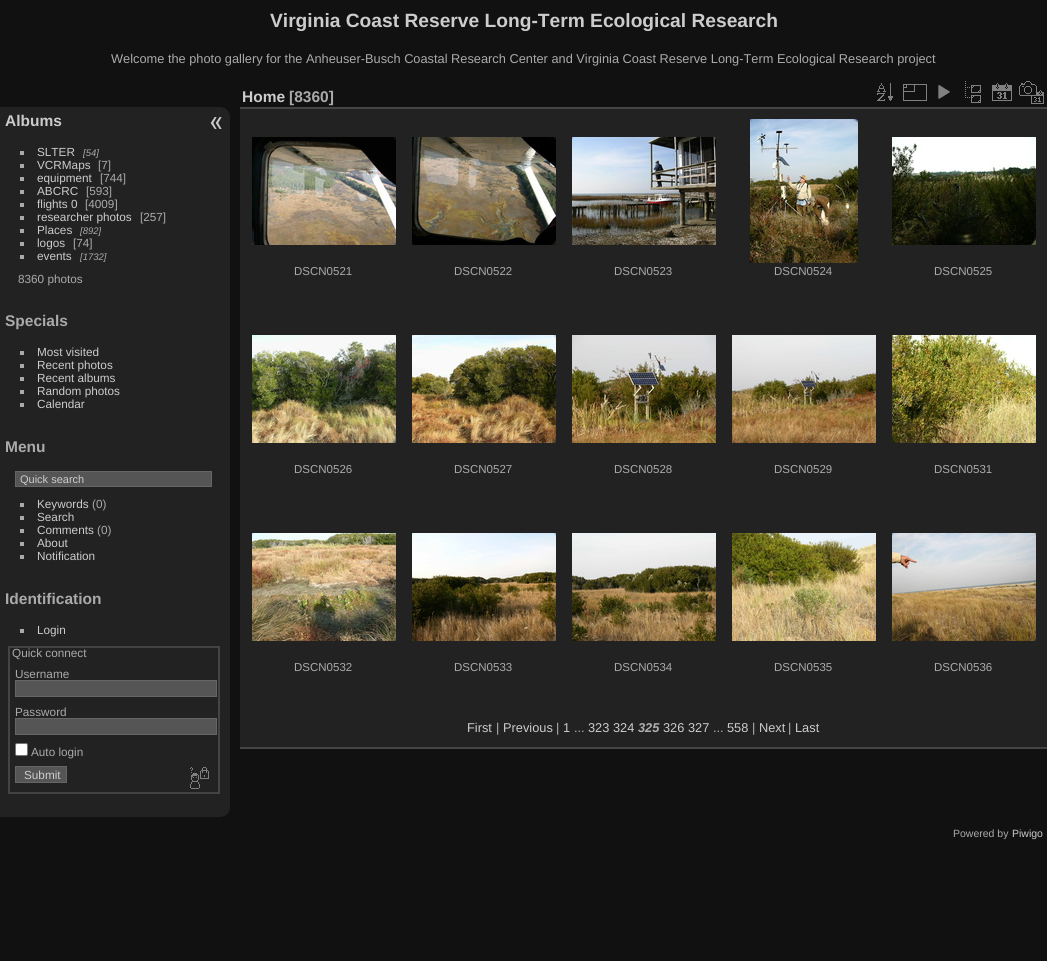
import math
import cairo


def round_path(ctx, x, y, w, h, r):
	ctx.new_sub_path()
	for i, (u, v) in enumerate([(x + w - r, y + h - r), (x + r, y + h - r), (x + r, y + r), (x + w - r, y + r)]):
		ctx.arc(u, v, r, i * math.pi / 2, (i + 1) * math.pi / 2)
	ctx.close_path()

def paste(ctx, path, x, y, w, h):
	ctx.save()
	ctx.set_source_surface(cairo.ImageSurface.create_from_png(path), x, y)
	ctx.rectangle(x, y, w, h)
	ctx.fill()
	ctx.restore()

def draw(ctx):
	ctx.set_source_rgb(0.067, 0.067, 0.067)
	ctx.paint()
	ctx.select_font_face('Liberation Sans', cairo.FONT_SLANT_NORMAL, cairo.FONT_WEIGHT_BOLD)
	ctx.set_font_size(19.2)
	ctx.set_source_rgb(0.8, 0.8, 0.8)
	ctx.move_to(270, 27)
	ctx.show_text('Virginia Coast Reserve Long-Term Ecological Research')
	ctx.select_font_face('Liberation Sans')
	ctx.set_font_size(12.8)
	ctx.set_source_rgb(0.667, 0.667, 0.667)
	ctx.move_to(111, 63)
	ctx.show_text('Welcome the photo gallery for the Anheuser-Busch Coastal Research Center and Virginia Coast Reserve Long-Term Ecological Research project')
	ctx.set_source_rgb(0.133, 0.133, 0.133)
	ctx.new_path()
	ctx.move_to(0, 107)
	ctx.line_to(220, 107)
	ctx.curve_to(225.5, 107, 230, 111.5, 230, 117)
	ctx.line_to(230, 807)
	ctx.curve_to(230, 812.5, 225.5, 817, 220, 817)
	ctx.line_to(0, 817)
	ctx.close_path()
	ctx.fill()
	ctx.select_font_face('Liberation Sans', cairo.FONT_SLANT_NORMAL, cairo.FONT_WEIGHT_BOLD)
	ctx.set_font_size(15.5)
	ctx.set_source_rgb(0.8, 0.8, 0.8)
	ctx.move_to(5, 126)
	ctx.show_text('Albums')
	ctx.set_source_rgb(0.667, 0.667, 0.667)
	ctx.rectangle(20, 151, 4, 4)
	ctx.fill()
	ctx.select_font_face('Liberation Sans')
	ctx.set_font_size(11.75)
	ctx.set_source_rgb(0.8, 0.8, 0.8)
	ctx.move_to(37, 156)
	ctx.show_text('SLTER')
	ctx.select_font_face('Liberation Sans', cairo.FONT_SLANT_ITALIC)
	ctx.set_font_size(9.5)
	ctx.set_source_rgb(0.667, 0.667, 0.667)
	ctx.move_to(83, 156)
	ctx.show_text('[54]')
	ctx.rectangle(20, 164, 4, 4)
	ctx.fill()
	ctx.select_font_face('Liberation Sans')
	ctx.set_font_size(11.75)
	ctx.set_source_rgb(0.8, 0.8, 0.8)
	ctx.move_to(37, 169)
	ctx.show_text('VCRMaps')
	ctx.set_source_rgb(0.667, 0.667, 0.667)
	ctx.move_to(98, 169)
	ctx.show_text('[7]')
	ctx.rectangle(20, 177, 4, 4)
	ctx.fill()
	ctx.set_source_rgb(0.8, 0.8, 0.8)
	ctx.move_to(37, 182)
	ctx.show_text('equipment')
	ctx.set_source_rgb(0.667, 0.667, 0.667)
	ctx.move_to(100, 182)
	ctx.show_text('[744]')
	ctx.rectangle(20, 190, 4, 4)
	ctx.fill()
	ctx.set_source_rgb(0.8, 0.8, 0.8)
	ctx.move_to(37, 195)
	ctx.show_text('ABCRC')
	ctx.set_source_rgb(0.667, 0.667, 0.667)
	ctx.move_to(86, 195)
	ctx.show_text('[593]')
	ctx.rectangle(20, 203, 4, 4)
	ctx.fill()
	ctx.set_source_rgb(0.8, 0.8, 0.8)
	ctx.move_to(37, 208)
	ctx.show_text('flights 0')
	ctx.set_source_rgb(0.667, 0.667, 0.667)
	ctx.move_to(85, 208)
	ctx.show_text('[4009]')
	ctx.rectangle(20, 216, 4, 4)
	ctx.fill()
	ctx.set_source_rgb(0.8, 0.8, 0.8)
	ctx.move_to(37, 221)
	ctx.show_text('researcher photos')
	ctx.set_source_rgb(0.667, 0.667, 0.667)
	ctx.move_to(140, 221)
	ctx.show_text('[257]')
	ctx.rectangle(20, 229, 4, 4)
	ctx.fill()
	ctx.set_source_rgb(0.8, 0.8, 0.8)
	ctx.move_to(37, 234)
	ctx.show_text('Places')
	ctx.select_font_face('Liberation Sans', cairo.FONT_SLANT_ITALIC)
	ctx.set_font_size(9.5)
	ctx.set_source_rgb(0.667, 0.667, 0.667)
	ctx.move_to(80, 234)
	ctx.show_text('[892]')
	ctx.rectangle(20, 242, 4, 4)
	ctx.fill()
	ctx.select_font_face('Liberation Sans')
	ctx.set_font_size(11.75)
	ctx.set_source_rgb(0.8, 0.8, 0.8)
	ctx.move_to(37, 247)
	ctx.show_text('logos')
	ctx.set_source_rgb(0.667, 0.667, 0.667)
	ctx.move_to(73, 247)
	ctx.show_text('[74]')
	ctx.rectangle(20, 255, 4, 4)
	ctx.fill()
	ctx.set_source_rgb(0.8, 0.8, 0.8)
	ctx.move_to(37, 260)
	ctx.show_text('events')
	ctx.select_font_face('Liberation Sans', cairo.FONT_SLANT_ITALIC)
	ctx.set_font_size(9.5)
	ctx.set_source_rgb(0.667, 0.667, 0.667)
	ctx.move_to(80, 260)
	ctx.show_text('[1732]')
	ctx.select_font_face('Liberation Sans')
	ctx.set_font_size(11.75)
	ctx.move_to(18, 283)
	ctx.show_text('8360 photos')
	ctx.select_font_face('Liberation Sans', cairo.FONT_SLANT_NORMAL, cairo.FONT_WEIGHT_BOLD)
	ctx.set_font_size(15.5)
	ctx.move_to(5, 326)
	ctx.show_text('Specials')
	ctx.rectangle(20, 351, 4, 4)
	ctx.fill()
	ctx.select_font_face('Liberation Sans')
	ctx.set_font_size(11.75)
	ctx.set_source_rgb(0.8, 0.8, 0.8)
	ctx.move_to(37, 356)
	ctx.show_text('Most visited')
	ctx.set_source_rgb(0.667, 0.667, 0.667)
	ctx.rectangle(20, 364, 4, 4)
	ctx.fill()
	ctx.set_source_rgb(0.8, 0.8, 0.8)
	ctx.move_to(37, 369)
	ctx.show_text('Recent photos')
	ctx.set_source_rgb(0.667, 0.667, 0.667)
	ctx.rectangle(20, 377, 4, 4)
	ctx.fill()
	ctx.set_source_rgb(0.8, 0.8, 0.8)
	ctx.move_to(37, 382)
	ctx.show_text('Recent albums')
	ctx.set_source_rgb(0.667, 0.667, 0.667)
	ctx.rectangle(20, 390, 4, 4)
	ctx.fill()
	ctx.set_source_rgb(0.8, 0.8, 0.8)
	ctx.move_to(37, 395)
	ctx.show_text('Random photos')
	ctx.set_source_rgb(0.667, 0.667, 0.667)
	ctx.rectangle(20, 403, 4, 4)
	ctx.fill()
	ctx.set_source_rgb(0.8, 0.8, 0.8)
	ctx.move_to(37, 408)
	ctx.show_text('Calendar')
	ctx.select_font_face('Liberation Sans', cairo.FONT_SLANT_NORMAL, cairo.FONT_WEIGHT_BOLD)
	ctx.set_font_size(15.5)
	ctx.set_source_rgb(0.667, 0.667, 0.667)
	ctx.move_to(5, 452)
	ctx.show_text('Menu')
	ctx.set_source_rgb(0.333, 0.333, 0.333)
	ctx.rectangle(15.5, 471.5, 196, 15)
	ctx.fill_preserve()
	ctx.set_source_rgb(0.4, 0.4, 0.4)
	ctx.set_line_width(1)
	ctx.stroke()
	ctx.select_font_face('Liberation Sans')
	ctx.set_font_size(11)
	ctx.set_source_rgb(0.8, 0.8, 0.8)
	ctx.move_to(20, 483)
	ctx.show_text('Quick search')
	ctx.set_source_rgb(0.667, 0.667, 0.667)
	ctx.rectangle(20, 503, 4, 4)
	ctx.fill()
	ctx.set_font_size(11.75)
	ctx.set_source_rgb(0.8, 0.8, 0.8)
	ctx.move_to(37, 508)
	ctx.show_text('Keywords')
	ctx.set_source_rgb(0.667, 0.667, 0.667)
	ctx.move_to(92, 508)
	ctx.show_text('(0)')
	ctx.rectangle(20, 516, 4, 4)
	ctx.fill()
	ctx.set_source_rgb(0.8, 0.8, 0.8)
	ctx.move_to(37, 521)
	ctx.show_text('Search')
	ctx.set_source_rgb(0.667, 0.667, 0.667)
	ctx.rectangle(20, 529, 4, 4)
	ctx.fill()
	ctx.set_source_rgb(0.8, 0.8, 0.8)
	ctx.move_to(37, 534)
	ctx.show_text('Comments')
	ctx.set_source_rgb(0.667, 0.667, 0.667)
	ctx.move_to(97, 534)
	ctx.show_text('(0)')
	ctx.rectangle(20, 542, 4, 4)
	ctx.fill()
	ctx.set_source_rgb(0.8, 0.8, 0.8)
	ctx.move_to(37, 547)
	ctx.show_text('About')
	ctx.set_source_rgb(0.667, 0.667, 0.667)
	ctx.rectangle(20, 555, 4, 4)
	ctx.fill()
	ctx.set_source_rgb(0.8, 0.8, 0.8)
	ctx.move_to(37, 560)
	ctx.show_text('Notification')
	ctx.select_font_face('Liberation Sans', cairo.FONT_SLANT_NORMAL, cairo.FONT_WEIGHT_BOLD)
	ctx.set_font_size(15.5)
	ctx.set_source_rgb(0.667, 0.667, 0.667)
	ctx.move_to(5, 604)
	ctx.show_text('Identification')
	ctx.rectangle(20, 629, 4, 4)
	ctx.fill()
	ctx.select_font_face('Liberation Sans')
	ctx.set_font_size(11.75)
	ctx.set_source_rgb(0.8, 0.8, 0.8)
	ctx.move_to(37, 634)
	ctx.show_text('Login')
	ctx.rectangle(9, 647, 210, 146)
	ctx.set_source_rgb(0.267, 0.267, 0.267)
	ctx.set_line_width(2)
	ctx.stroke()
	ctx.set_source_rgb(0.667, 0.667, 0.667)
	ctx.move_to(12, 657)
	ctx.show_text('Quick connect')
	ctx.move_to(15, 678)
	ctx.show_text('Username')
	ctx.set_source_rgb(0.333, 0.333, 0.333)
	ctx.rectangle(15.5, 680.5, 201, 16)
	ctx.fill_preserve()
	ctx.set_source_rgb(0.4, 0.4, 0.4)
	ctx.set_line_width(1)
	ctx.stroke()
	ctx.set_source_rgb(0.667, 0.667, 0.667)
	ctx.move_to(15, 716)
	ctx.show_text('Password')
	ctx.set_source_rgb(0.333, 0.333, 0.333)
	ctx.rectangle(15.5, 718.5, 201, 16)
	ctx.fill_preserve()
	ctx.set_source_rgb(0.4, 0.4, 0.4)
	ctx.stroke()
	ctx.set_source_rgb(1, 1, 1)
	round_path(ctx, 15.5, 743.5, 12, 12, 1.5)
	ctx.fill_preserve()
	ctx.set_source_rgb(0.463, 0.463, 0.463)
	ctx.stroke()
	ctx.set_source_rgb(0.667, 0.667, 0.667)
	ctx.move_to(31, 756)
	ctx.show_text('Auto login')
	ctx.set_source_rgb(0.333, 0.333, 0.333)
	ctx.rectangle(15.5, 766.5, 51, 16)
	ctx.fill_preserve()
	ctx.set_source_rgb(0.4, 0.4, 0.4)
	ctx.stroke()
	ctx.set_source_rgb(0.8, 0.8, 0.8)
	ctx.move_to(24, 779)
	ctx.show_text('Submit')
	paste(ctx, 'media/1.png', 190, 767, 19, 22)
	paste(ctx, 'media/2.png', 210, 117, 12, 12)
	ctx.set_source_rgb(0.133, 0.133, 0.133)
	ctx.rectangle(240, 109, 807, 638)
	ctx.fill()
	ctx.set_source_rgb(0.267, 0.267, 0.267)
	ctx.rectangle(240, 747, 807, 2)
	ctx.rectangle(240, 107, 807, 2)
	ctx.fill()
	ctx.select_font_face('Liberation Sans', cairo.FONT_SLANT_NORMAL, cairo.FONT_WEIGHT_BOLD)
	ctx.set_font_size(15.5)
	ctx.set_source_rgb(0.8, 0.8, 0.8)
	ctx.move_to(242, 102)
	ctx.show_text('Home')
	ctx.set_source_rgb(0.667, 0.667, 0.667)
	ctx.move_to(289, 102)
	ctx.show_text('[8360]')
	paste(ctx, 'media/3.png', 877, 83, 16, 18)
	paste(ctx, 'media/4.png', 903, 84, 24, 17)
	paste(ctx, 'media/5.png', 938, 85, 12, 14)
	paste(ctx, 'media/6.png', 965, 81, 16, 22)
	paste(ctx, 'media/7.png', 992, 83, 20, 18)
	paste(ctx, 'media/8.png', 1019, 81, 25, 23)
	paste(ctx, 'media/9.png', 252, 137, 144, 108)
	ctx.select_font_face('Liberation Sans')
	ctx.set_font_size(11.5)
	ctx.move_to(294, 275)
	ctx.show_text('DSCN0521')
	paste(ctx, 'media/10.png', 412, 137, 144, 108)
	ctx.move_to(454, 275)
	ctx.show_text('DSCN0522')
	paste(ctx, 'media/11.png', 572, 137, 144, 108)
	ctx.move_to(614, 275)
	ctx.show_text('DSCN0523')
	paste(ctx, 'media/12.png', 750, 119, 108, 144)
	ctx.move_to(774, 275)
	ctx.show_text('DSCN0524')
	paste(ctx, 'media/13.png', 892, 137, 144, 108)
	ctx.move_to(934, 275)
	ctx.show_text('DSCN0525')
	paste(ctx, 'media/14.png', 252, 335, 144, 108)
	ctx.move_to(294, 473)
	ctx.show_text('DSCN0526')
	paste(ctx, 'media/15.png', 412, 335, 144, 108)
	ctx.move_to(454, 473)
	ctx.show_text('DSCN0527')
	paste(ctx, 'media/16.png', 572, 335, 144, 108)
	ctx.move_to(614, 473)
	ctx.show_text('DSCN0528')
	paste(ctx, 'media/17.png', 732, 335, 144, 108)
	ctx.move_to(774, 473)
	ctx.show_text('DSCN0529')
	paste(ctx, 'media/18.png', 892, 335, 144, 108)
	ctx.move_to(934, 473)
	ctx.show_text('DSCN0531')
	paste(ctx, 'media/19.png', 252, 533, 144, 108)
	ctx.move_to(294, 671)
	ctx.show_text('DSCN0532')
	paste(ctx, 'media/20.png', 412, 533, 144, 108)
	ctx.move_to(454, 671)
	ctx.show_text('DSCN0533')
	paste(ctx, 'media/21.png', 572, 533, 144, 108)
	ctx.move_to(614, 671)
	ctx.show_text('DSCN0534')
	paste(ctx, 'media/22.png', 732, 533, 144, 108)
	ctx.move_to(774, 671)
	ctx.show_text('DSCN0535')
	paste(ctx, 'media/23.png', 892, 533, 144, 108)
	ctx.move_to(934, 671)
	ctx.show_text('DSCN0536')
	ctx.set_font_size(12.8)
	ctx.set_source_rgb(0.8, 0.8, 0.8)
	ctx.move_to(467, 732)
	ctx.show_text('First')
	ctx.set_source_rgb(0.69, 0.69, 0.69)
	ctx.move_to(496, 732)
	ctx.show_text('|')
	ctx.set_source_rgb(0.8, 0.8, 0.8)
	ctx.move_to(503, 732)
	ctx.show_text('Previous')
	ctx.set_source_rgb(0.69, 0.69, 0.69)
	ctx.move_to(556, 732)
	ctx.show_text('|')
	ctx.set_source_rgb(0.8, 0.8, 0.8)
	ctx.move_to(563, 732)
	ctx.show_text('1')
	ctx.set_source_rgb(0.69, 0.69, 0.69)
	ctx.move_to(574, 732)
	ctx.show_text('...')
	ctx.set_source_rgb(0.8, 0.8, 0.8)
	ctx.move_to(588, 732)
	ctx.show_text('323 324')
	ctx.select_font_face('Liberation Sans', cairo.FONT_SLANT_ITALIC, cairo.FONT_WEIGHT_BOLD)
	ctx.set_source_rgb(0.69, 0.69, 0.69)
	ctx.move_to(638, 732)
	ctx.show_text('325')
	ctx.select_font_face('Liberation Sans')
	ctx.set_source_rgb(0.8, 0.8, 0.8)
	ctx.move_to(663, 732)
	ctx.show_text('326 327')
	ctx.set_source_rgb(0.69, 0.69, 0.69)
	ctx.move_to(713, 732)
	ctx.show_text('...')
	ctx.set_source_rgb(0.8, 0.8, 0.8)
	ctx.move_to(727, 732)
	ctx.show_text('558')
	ctx.set_source_rgb(0.69, 0.69, 0.69)
	ctx.move_to(752, 732)
	ctx.show_text('|')
	ctx.set_source_rgb(0.8, 0.8, 0.8)
	ctx.move_to(759, 732)
	ctx.show_text('Next')
	ctx.set_source_rgb(0.69, 0.69, 0.69)
	ctx.move_to(788, 732)
	ctx.show_text('|')
	ctx.set_source_rgb(0.8, 0.8, 0.8)
	ctx.move_to(795, 732)
	ctx.show_text('Last')
	ctx.set_font_size(10.5)
	ctx.set_source_rgb(0.667, 0.667, 0.667)
	ctx.move_to(953, 837)
	ctx.show_text('Powered by')
	ctx.set_source_rgb(0.8, 0.8, 0.8)
	ctx.move_to(1012, 837)
	ctx.show_text('Piwigo')


surface = cairo.ImageSurface(cairo.FORMAT_RGB24, 1047, 961)
ctx = cairo.Context(surface)
options = cairo.FontOptions()
options.set_hint_metrics(cairo.HINT_METRICS_OFF)
options.set_hint_style(cairo.HINT_STYLE_NONE)
ctx.set_font_options(options)
ctx.set_miter_limit(4)
draw(ctx)
surface.write_to_png('image.png')
